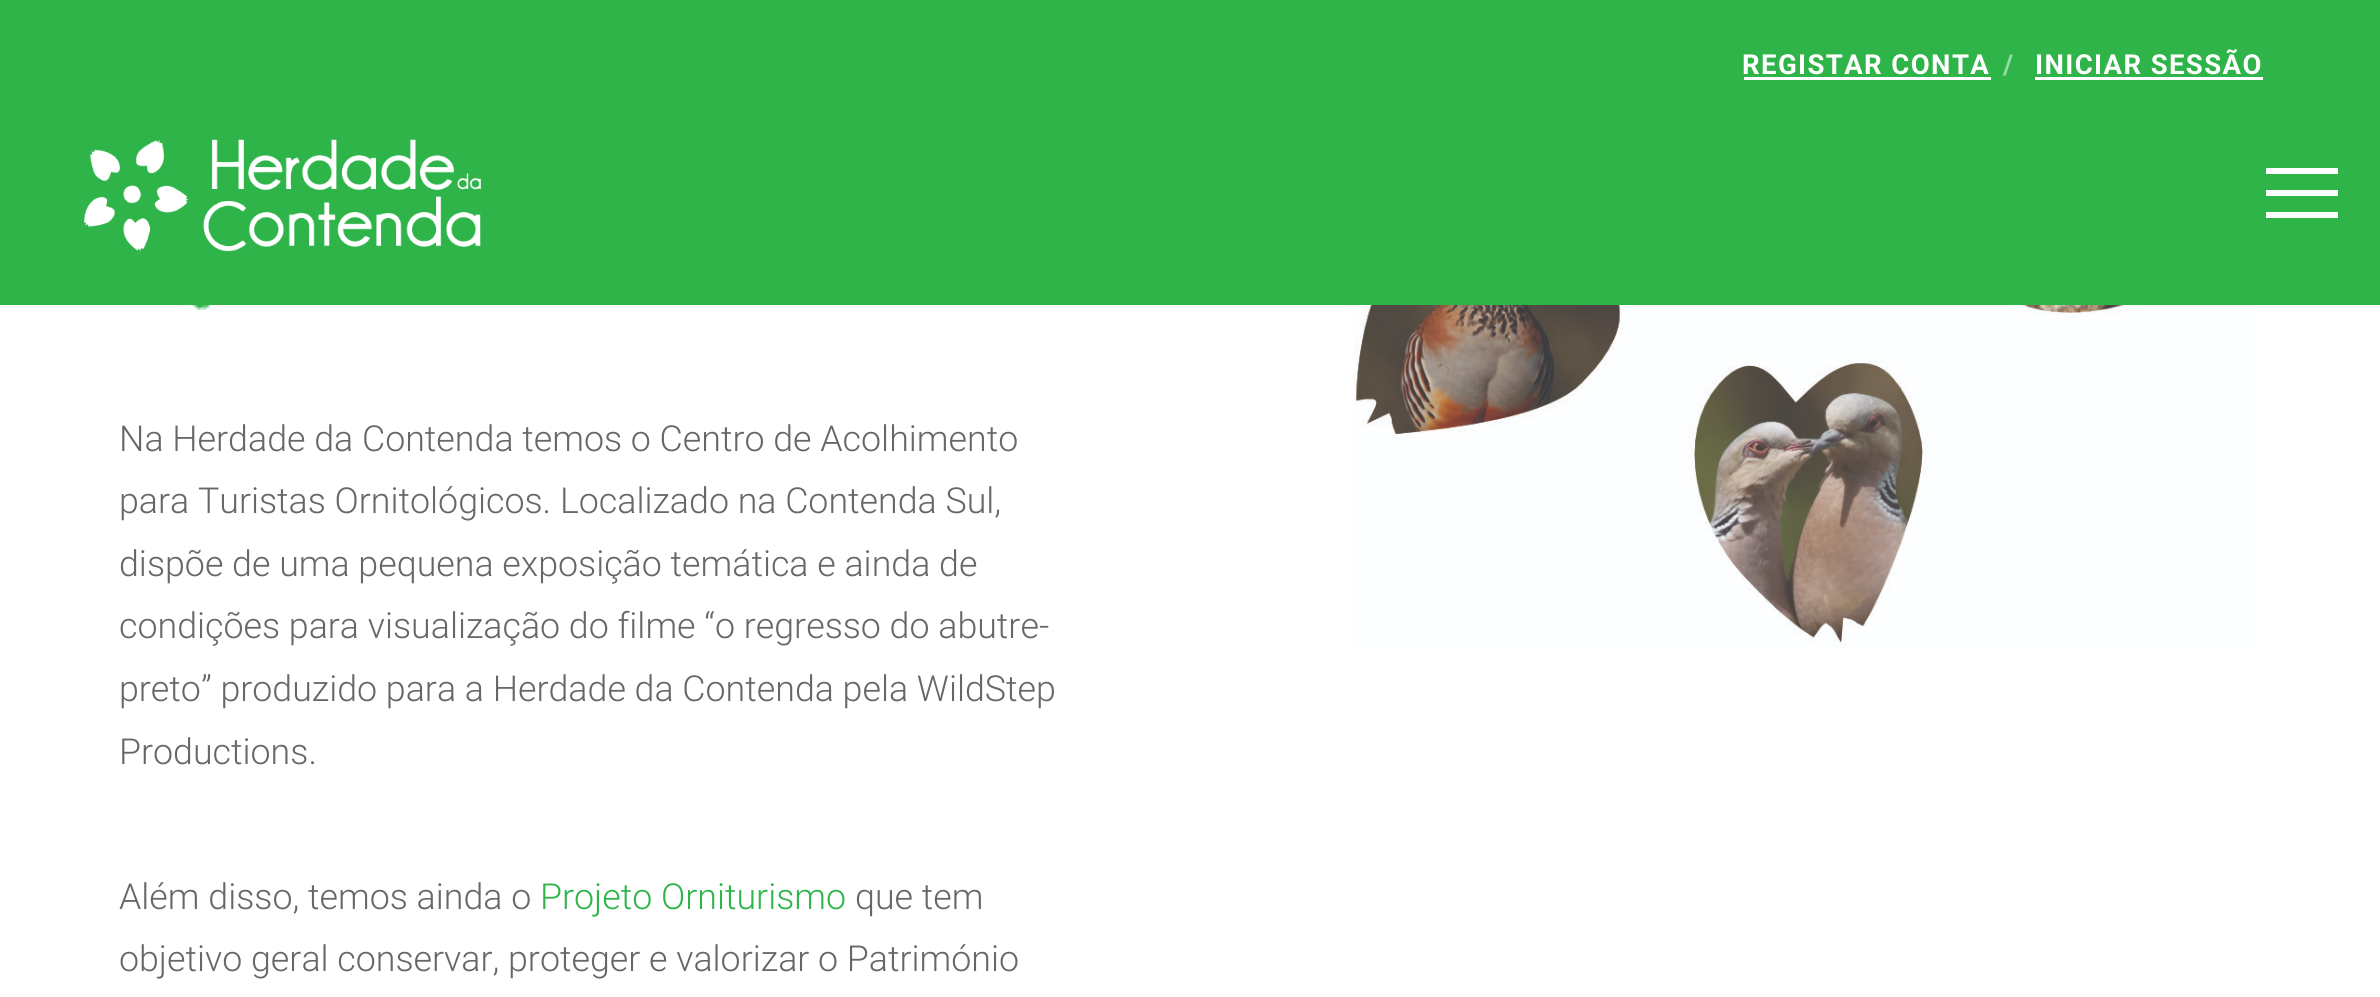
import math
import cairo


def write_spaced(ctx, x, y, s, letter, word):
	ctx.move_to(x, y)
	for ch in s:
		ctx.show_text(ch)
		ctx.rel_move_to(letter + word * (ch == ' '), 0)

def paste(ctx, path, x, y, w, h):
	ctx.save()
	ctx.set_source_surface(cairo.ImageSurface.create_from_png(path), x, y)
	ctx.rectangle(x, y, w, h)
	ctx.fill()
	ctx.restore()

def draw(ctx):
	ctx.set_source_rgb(1, 1, 1)
	ctx.paint()
	ctx.set_source_rgb(0.184, 0.706, 0.29)
	ctx.rectangle(0, 0, 2380, 305)
	ctx.fill()
	paste(ctx, 'media/1.png', 83, 139, 398, 113)
	ctx.set_source_rgb(1, 1, 1)
	ctx.rectangle(2266, 168, 72, 6)
	ctx.rectangle(2266, 190, 72, 6)
	ctx.rectangle(2266, 212, 72, 6)
	ctx.fill()
	ctx.select_font_face('Roboto', cairo.FONT_SLANT_NORMAL, cairo.FONT_WEIGHT_BOLD)
	ctx.set_font_size(27.5)
	write_spaced(ctx, 1742, 74, 'REGISTAR CONTA', 1.4, 0)
	ctx.rectangle(1744, 77, 247, 3)
	ctx.fill()
	ctx.set_source_rgb(0.592, 0.855, 0.647)
	write_spaced(ctx, 2003, 74, '/', 1.4, 0)
	ctx.set_source_rgb(1, 1, 1)
	write_spaced(ctx, 2035, 74, 'INICIAR SESSÃO', 1.4, 0)
	ctx.rectangle(2035, 77, 228, 3)
	ctx.fill()
	paste(ctx, 'media/2.png', 190, 305, 22, 6)
	ctx.select_font_face('Roboto Light')
	ctx.set_font_size(35.75)
	ctx.set_source_rgb(0.404, 0.404, 0.404)
	for x, y, s in [
		(119, 451, 'Na Herdade da Contenda temos o Centro de Acolhimento'),
		(119, 513, 'para Turistas Ornitológicos. Localizado na Contenda Sul,'),
		(119, 576, 'dispõe de uma pequena exposição temática e ainda de'),
		(119, 638, 'condições para visualização do filme “o regresso do abutre-'),
		(119, 701, 'preto” produzido para a Herdade da Contenda pela WildStep'),
		(119, 764, 'Productions.'),
		(119, 909, 'Além disso, temos ainda o'),
	]:
		ctx.move_to(x, y)
		ctx.show_text(s)
	ctx.set_source_rgb(0.184, 0.706, 0.29)
	ctx.move_to(540, 909)
	ctx.show_text('Projeto Orniturismo')
	ctx.set_source_rgb(0.404, 0.404, 0.404)
	ctx.move_to(855, 909)
	ctx.show_text('que tem')
	ctx.move_to(119, 971)
	ctx.show_text('objetivo geral conservar, proteger e valorizar o Património')
	paste(ctx, 'media/3.png', 1354, 305, 901, 344)


surface = cairo.ImageSurface(cairo.FORMAT_RGB24, 2380, 997)
ctx = cairo.Context(surface)
options = cairo.FontOptions()
options.set_hint_metrics(cairo.HINT_METRICS_OFF)
options.set_hint_style(cairo.HINT_STYLE_NONE)
ctx.set_font_options(options)
ctx.set_miter_limit(4)
draw(ctx)
surface.write_to_png('image.png')
